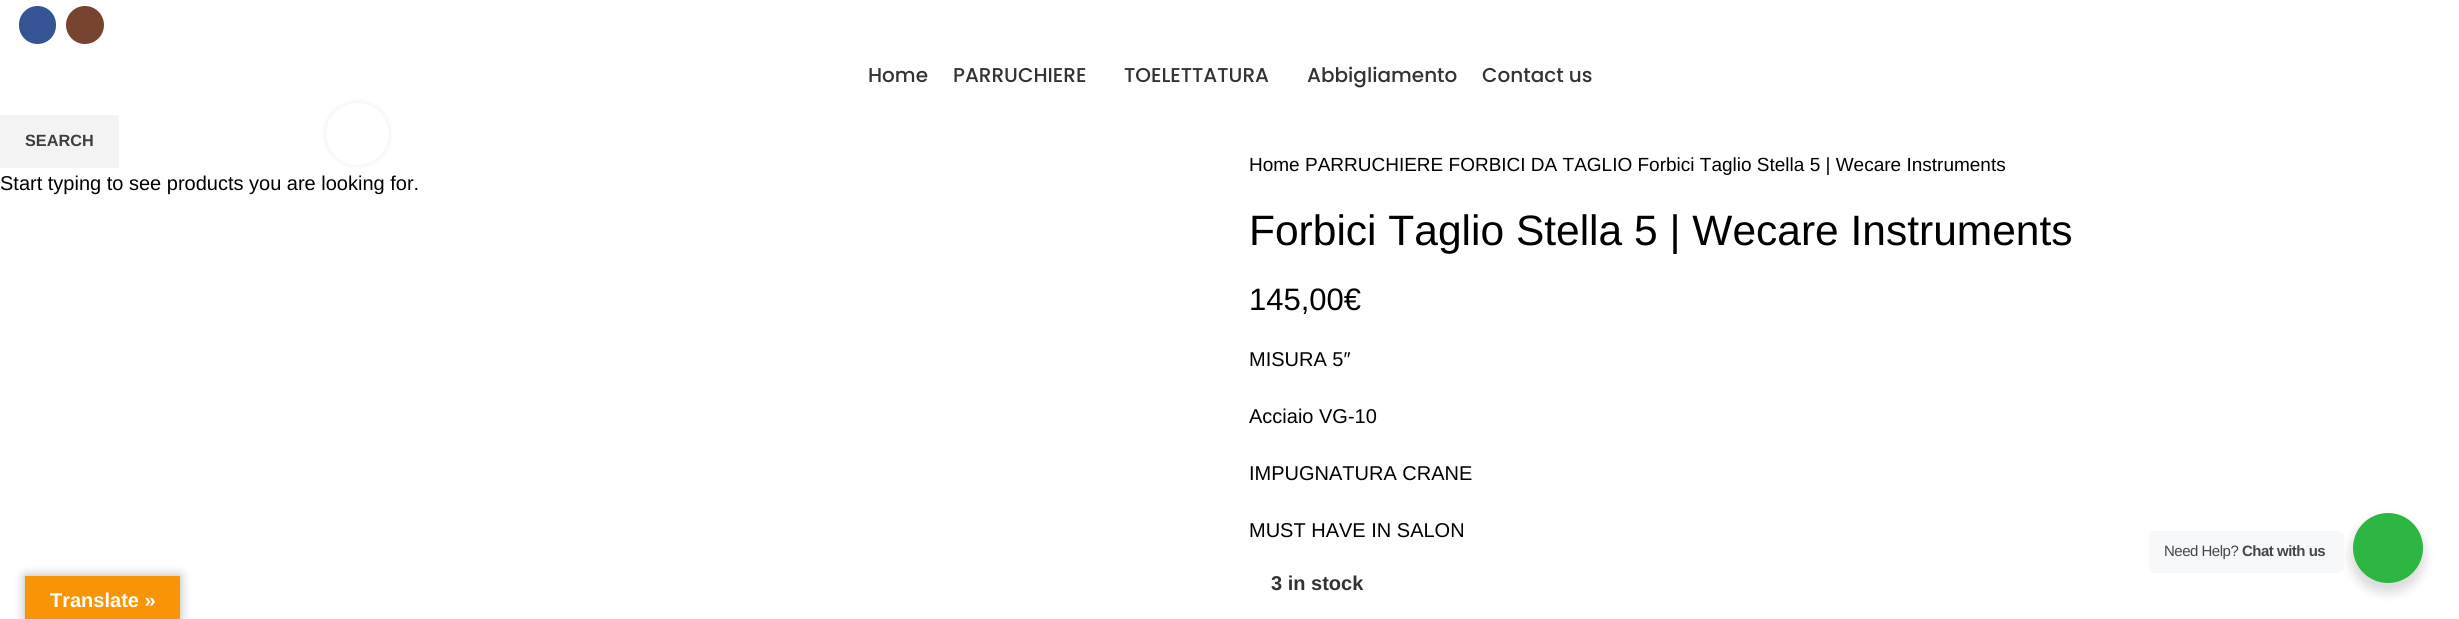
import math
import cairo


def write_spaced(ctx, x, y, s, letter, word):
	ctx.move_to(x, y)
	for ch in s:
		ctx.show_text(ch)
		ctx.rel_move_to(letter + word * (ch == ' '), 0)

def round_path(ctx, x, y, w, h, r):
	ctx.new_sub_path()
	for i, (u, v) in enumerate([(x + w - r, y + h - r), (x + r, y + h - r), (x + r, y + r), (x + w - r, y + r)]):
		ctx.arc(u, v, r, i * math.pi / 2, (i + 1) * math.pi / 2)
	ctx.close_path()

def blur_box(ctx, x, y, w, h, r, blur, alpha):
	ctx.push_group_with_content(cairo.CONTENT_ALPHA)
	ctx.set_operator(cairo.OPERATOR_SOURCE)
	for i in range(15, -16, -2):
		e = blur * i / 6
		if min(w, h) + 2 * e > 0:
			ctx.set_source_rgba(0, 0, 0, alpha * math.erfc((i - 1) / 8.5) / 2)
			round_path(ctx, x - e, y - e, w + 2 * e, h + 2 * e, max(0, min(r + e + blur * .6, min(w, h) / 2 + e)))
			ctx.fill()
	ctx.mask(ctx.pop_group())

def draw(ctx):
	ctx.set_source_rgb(1, 1, 1)
	ctx.paint()
	ctx.set_source_rgb(0.212, 0.329, 0.576)
	round_path(ctx, 19, 6, 37, 38, 18.5)
	ctx.fill()
	ctx.set_source_rgb(0.467, 0.267, 0.188)
	ctx.arc(85, 25, 19, 0, 2 * math.pi)
	ctx.fill()
	ctx.select_font_face('Poppins Medium')
	ctx.set_font_size(20)
	ctx.set_source_rgb(0.2, 0.2, 0.2)
	for x, y, s in [
		(868, 82, 'Home'),
		(953, 82, 'PARRUCHIERE'),
		(1124, 82, 'TOELETTATURA'),
		(1307, 82, 'Abbigliamento'),
		(1482, 82, 'Contact us'),
	]:
		ctx.move_to(x, y)
		ctx.show_text(s)
	ctx.set_source_rgb(0, 0, 0)
	blur_box(ctx, 326, 103, 63, 62, 31, 3, 0.08)
	ctx.set_source_rgb(1, 1, 1)
	round_path(ctx, 326, 103, 63, 62, 31)
	ctx.fill()
	ctx.select_font_face('Liberation Sans')
	ctx.set_font_size(19)
	ctx.set_source_rgb(0, 0, 0)
	ctx.move_to(1249, 171)
	ctx.show_text('Home PARRUCHIERE FORBICI DA TAGLIO Forbici Taglio Stella 5 | Wecare Instruments')
	ctx.set_font_size(42.5)
	ctx.move_to(1249, 245)
	ctx.show_text('Forbici Taglio Stella 5 | Wecare Instruments')
	ctx.set_font_size(31)
	ctx.move_to(1249, 310)
	ctx.show_text('145,00€')
	ctx.set_font_size(20)
	for x, y, s in [
		(1249, 366, 'MISURA 5″'),
		(1249, 423, 'Acciaio VG-10'),
		(1249, 480, 'IMPUGNATURA CRANE'),
		(1249, 537, 'MUST HAVE IN SALON'),
	]:
		ctx.move_to(x, y)
		ctx.show_text(s)
	ctx.select_font_face('Liberation Sans', cairo.FONT_SLANT_NORMAL, cairo.FONT_WEIGHT_BOLD)
	ctx.set_source_rgb(0.2, 0.2, 0.2)
	ctx.move_to(1271, 590)
	ctx.show_text('3 in stock')
	ctx.set_source_rgb(0.953, 0.953, 0.953)
	ctx.rectangle(0, 115, 119, 53)
	ctx.fill()
	ctx.set_font_size(16.25)
	ctx.set_source_rgb(0.243, 0.243, 0.243)
	ctx.move_to(25, 146)
	ctx.show_text('SEARCH')
	ctx.select_font_face('Liberation Sans')
	ctx.set_font_size(20)
	ctx.set_source_rgb(0, 0, 0)
	ctx.move_to(0, 190)
	ctx.show_text('Start typing to see products you are looking for.')
	ctx.set_source_rgb(0, 0, 0)
	blur_box(ctx, 2350, 518, 75, 75, 37.5, 5, 0.14)
	ctx.set_source_rgb(0.961, 0.969, 0.976)
	round_path(ctx, 2149, 531, 195, 42, 5)
	ctx.fill()
	ctx.set_font_size(15)
	ctx.set_source_rgb(0.263, 0.278, 0.306)
	write_spaced(ctx, 2164, 556, 'Need Help?', -0.5, 0)
	ctx.select_font_face('Liberation Sans', cairo.FONT_SLANT_NORMAL, cairo.FONT_WEIGHT_BOLD)
	write_spaced(ctx, 2242, 556, 'Chat with us', -0.5, 0)
	ctx.set_source_rgb(0.176, 0.718, 0.259)
	ctx.new_path()
	ctx.arc(2388, 548, 35, 0, 2 * math.pi)
	ctx.fill()
	ctx.set_source_rgb(0, 0, 0)
	blur_box(ctx, 25, 576, 155, 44, 0, 5.5, 0.3)
	ctx.set_source_rgb(0.973, 0.58, 0.024)
	ctx.rectangle(25, 576, 155, 43)
	ctx.fill()
	ctx.set_font_size(20)
	ctx.set_source_rgb(1, 1, 1)
	ctx.move_to(50, 607)
	ctx.show_text('Translate »')


surface = cairo.ImageSurface(cairo.FORMAT_RGB24, 2459, 619)
ctx = cairo.Context(surface)
options = cairo.FontOptions()
options.set_hint_metrics(cairo.HINT_METRICS_OFF)
options.set_hint_style(cairo.HINT_STYLE_NONE)
ctx.set_font_options(options)
ctx.set_miter_limit(4)
draw(ctx)
surface.write_to_png('image.png')
